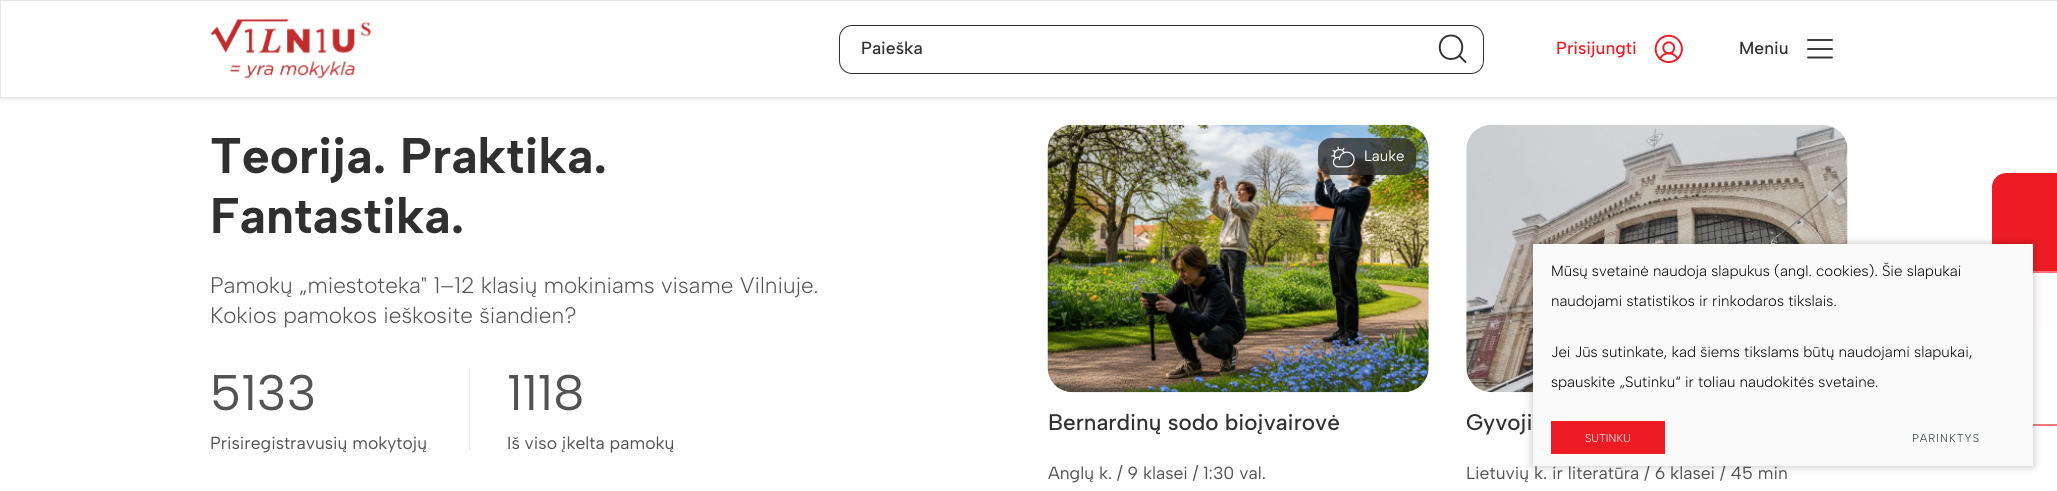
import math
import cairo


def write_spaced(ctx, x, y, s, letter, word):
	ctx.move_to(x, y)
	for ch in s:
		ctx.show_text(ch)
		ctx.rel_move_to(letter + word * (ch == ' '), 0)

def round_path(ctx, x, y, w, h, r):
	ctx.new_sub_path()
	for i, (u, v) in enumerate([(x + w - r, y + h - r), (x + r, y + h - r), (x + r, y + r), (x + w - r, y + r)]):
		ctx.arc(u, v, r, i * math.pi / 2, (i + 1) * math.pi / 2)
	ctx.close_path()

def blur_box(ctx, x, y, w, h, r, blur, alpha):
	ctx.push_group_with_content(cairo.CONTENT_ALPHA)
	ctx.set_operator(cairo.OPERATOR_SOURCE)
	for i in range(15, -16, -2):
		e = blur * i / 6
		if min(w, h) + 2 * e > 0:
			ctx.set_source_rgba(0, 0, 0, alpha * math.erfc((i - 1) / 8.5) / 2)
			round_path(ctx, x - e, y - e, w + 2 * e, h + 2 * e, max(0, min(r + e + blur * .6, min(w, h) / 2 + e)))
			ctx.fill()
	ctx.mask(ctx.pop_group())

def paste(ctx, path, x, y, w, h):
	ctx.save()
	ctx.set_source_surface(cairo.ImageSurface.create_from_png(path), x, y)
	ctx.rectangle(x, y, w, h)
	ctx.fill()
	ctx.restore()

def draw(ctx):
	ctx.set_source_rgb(1, 1, 1)
	ctx.paint()
	ctx.set_source_rgb(0, 0, 0)
	blur_box(ctx, 0, 0, 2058, 98, 0, 3, 0.15)
	ctx.set_source_rgb(1, 1, 1)
	ctx.rectangle(0.5, 0.5, 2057, 97)
	ctx.fill_preserve()
	ctx.set_source_rgb(0.906, 0.906, 0.906)
	ctx.set_line_width(1)
	ctx.stroke()
	paste(ctx, 'media/1.png', 210, 18, 162, 61)
	round_path(ctx, 839.5, 25.5, 644, 48, 12.5)
	ctx.set_source_rgb(0.188, 0.188, 0.188)
	ctx.stroke()
	ctx.select_font_face('Albert Sans Medium')
	ctx.set_font_size(17.5)
	ctx.move_to(861, 54)
	ctx.show_text('Paieška')
	ctx.new_path()
	ctx.move_to(1451, 59)
	ctx.curve_to(1466, 59, 1466, 35.5, 1451, 35.5)
	ctx.curve_to(1436, 35.5, 1436, 59, 1451, 59)
	ctx.close_path()
	ctx.move_to(1459, 55.5)
	ctx.line_to(1465.5, 62)
	ctx.set_line_width(1.9)
	ctx.set_line_cap(cairo.LINE_CAP_ROUND)
	ctx.set_line_join(cairo.LINE_JOIN_ROUND)
	ctx.stroke()
	ctx.set_source_rgb(0.929, 0.11, 0.141)
	ctx.move_to(1556, 54)
	ctx.show_text('Prisijungti')
	paste(ctx, 'media/2.png', 1654, 34, 29, 29)
	ctx.set_source_rgb(0.188, 0.188, 0.188)
	ctx.move_to(1739, 54)
	ctx.show_text('Meniu')
	ctx.new_path()
	ctx.move_to(1808, 49)
	ctx.line_to(1832, 49)
	ctx.move_to(1808, 40)
	ctx.line_to(1832, 40)
	ctx.move_to(1808, 57.5)
	ctx.line_to(1832, 57.5)
	ctx.stroke()
	ctx.select_font_face('Albert Sans', cairo.FONT_SLANT_NORMAL, cairo.FONT_WEIGHT_BOLD)
	ctx.set_font_size(50)
	ctx.move_to(210, 173)
	ctx.show_text('Teorija. Praktika.')
	ctx.move_to(210, 233)
	ctx.show_text('Fantastika.')
	ctx.select_font_face('Albert Sans Light')
	ctx.set_font_size(22.5)
	ctx.set_source_rgb(0.325, 0.325, 0.325)
	ctx.move_to(210, 293)
	ctx.show_text('Pamokų „miestoteka" 1–12 klasių mokiniams visame Vilniuje.')
	ctx.move_to(210, 323)
	ctx.show_text('Kokios pamokos ieškosite šiandien?')
	ctx.select_font_face('Albert Sans')
	ctx.set_font_size(50)
	ctx.move_to(210, 410)
	ctx.show_text('5133')
	ctx.set_source_rgb(0.906, 0.906, 0.906)
	ctx.rectangle(469, 368, 1, 82)
	ctx.fill()
	ctx.set_font_size(17.5)
	ctx.set_source_rgb(0.325, 0.325, 0.325)
	ctx.move_to(210, 449)
	ctx.show_text('Prisiregistravusių mokytojų')
	ctx.set_font_size(50)
	ctx.move_to(507, 410)
	ctx.show_text('1118')
	ctx.set_font_size(17.5)
	ctx.move_to(507, 449)
	ctx.show_text('Iš viso įkelta pamokų')
	paste(ctx, 'media/3.png', 1047, 124, 382, 269)
	ctx.set_source_rgba(0.188, 0.188, 0.188, 0.8)
	round_path(ctx, 1318, 138, 98, 37, 13)
	ctx.fill()
	paste(ctx, 'media/4.png', 1331, 146, 24, 22)
	ctx.set_font_size(15)
	ctx.set_source_rgb(1, 1, 1)
	ctx.move_to(1364, 161)
	ctx.show_text('Lauke')
	ctx.select_font_face('Albert Sans Medium')
	ctx.set_font_size(22.5)
	ctx.set_source_rgb(0.188, 0.188, 0.188)
	ctx.move_to(1048, 430)
	ctx.show_text('Bernardinų sodo bioįvairovė')
	ctx.select_font_face('Albert Sans')
	ctx.set_font_size(17.5)
	ctx.set_source_rgb(0.325, 0.325, 0.325)
	ctx.move_to(1048, 479)
	ctx.show_text('Anglų k. / 9 klasei / 1:30 val.')
	paste(ctx, 'media/5.png', 1466, 125, 382, 268)
	ctx.select_font_face('Albert Sans Medium')
	ctx.set_font_size(22.5)
	ctx.set_source_rgb(0.188, 0.188, 0.188)
	ctx.move_to(1466, 430)
	ctx.show_text('Gyvoji')
	ctx.select_font_face('Albert Sans')
	ctx.set_font_size(17.5)
	ctx.set_source_rgb(0.325, 0.325, 0.325)
	ctx.move_to(1466, 479)
	ctx.show_text('Lietuvių k. ir literatūra / 6 klasei / 45 min')
	ctx.set_source_rgb(0.929, 0.11, 0.141)
	ctx.new_path()
	ctx.move_to(2057, 173)
	ctx.line_to(2057, 328)
	ctx.line_to(2006, 328)
	ctx.curve_to(1999, 328, 1992, 322, 1992, 314)
	ctx.line_to(1992, 187)
	ctx.curve_to(1992, 179, 1999, 173, 2006, 173)
	ctx.close_path()
	ctx.fill()
	ctx.set_source_rgba(1, 1, 1, 0.99)
	ctx.new_path()
	ctx.move_to(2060, 271)
	ctx.line_to(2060, 426)
	ctx.line_to(2006, 426)
	ctx.curve_to(1998, 426, 1992, 420, 1992, 412)
	ctx.line_to(1992, 285)
	ctx.curve_to(1992, 277, 1998, 271, 2006, 271)
	ctx.close_path()
	ctx.fill()
	ctx.new_path()
	ctx.move_to(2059, 272)
	ctx.line_to(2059, 425)
	ctx.line_to(2006, 425)
	ctx.curve_to(1998.5, 425, 1992.5, 419, 1992.5, 412)
	ctx.line_to(1992.5, 285)
	ctx.curve_to(1992.5, 278, 1998.5, 272, 2006, 272)
	ctx.close_path()
	ctx.set_source_rgb(0.929, 0.11, 0.141)
	ctx.set_line_width(1.2)
	ctx.set_line_cap(cairo.LINE_CAP_BUTT)
	ctx.set_line_join(cairo.LINE_JOIN_MITER)
	ctx.stroke()
	ctx.set_source_rgb(0, 0, 0)
	blur_box(ctx, 1533, 244, 500, 222, 0, 4.5, 0.25)
	ctx.set_source_rgb(0.98, 0.98, 0.98)
	ctx.rectangle(1533, 244, 500, 222)
	ctx.fill()
	ctx.select_font_face('Albert Sans Light')
	ctx.set_font_size(15)
	ctx.set_source_rgb(0, 0, 0)
	for x, y, s in [
		(1551, 276, 'Mūsų svetainė naudoja slapukus (angl. cookies). Šie slapukai'),
		(1551, 306, 'naudojami statistikos ir rinkodaros tikslais.'),
		(1551, 357, 'Jei Jūs sutinkate, kad šiems tikslams būtų naudojami slapukai,'),
		(1551, 387, 'spauskite „Sutinku“ ir toliau naudokitės svetaine.'),
	]:
		ctx.move_to(x, y)
		ctx.show_text(s)
	ctx.set_source_rgb(0.929, 0.11, 0.141)
	ctx.rectangle(1551, 421, 114, 33)
	ctx.fill()
	ctx.set_font_size(11.25)
	ctx.set_source_rgb(1, 1, 1)
	ctx.move_to(1585, 442)
	ctx.show_text('SUTINKU')
	ctx.set_source_rgb(0.149, 0.196, 0.22)
	write_spaced(ctx, 1912, 442, 'PARINKTYS', 1.1, 0)


surface = cairo.ImageSurface(cairo.FORMAT_RGB24, 2057, 491)
ctx = cairo.Context(surface)
options = cairo.FontOptions()
options.set_hint_metrics(cairo.HINT_METRICS_OFF)
options.set_hint_style(cairo.HINT_STYLE_NONE)
ctx.set_font_options(options)
ctx.set_miter_limit(4)
draw(ctx)
surface.write_to_png('image.png')
